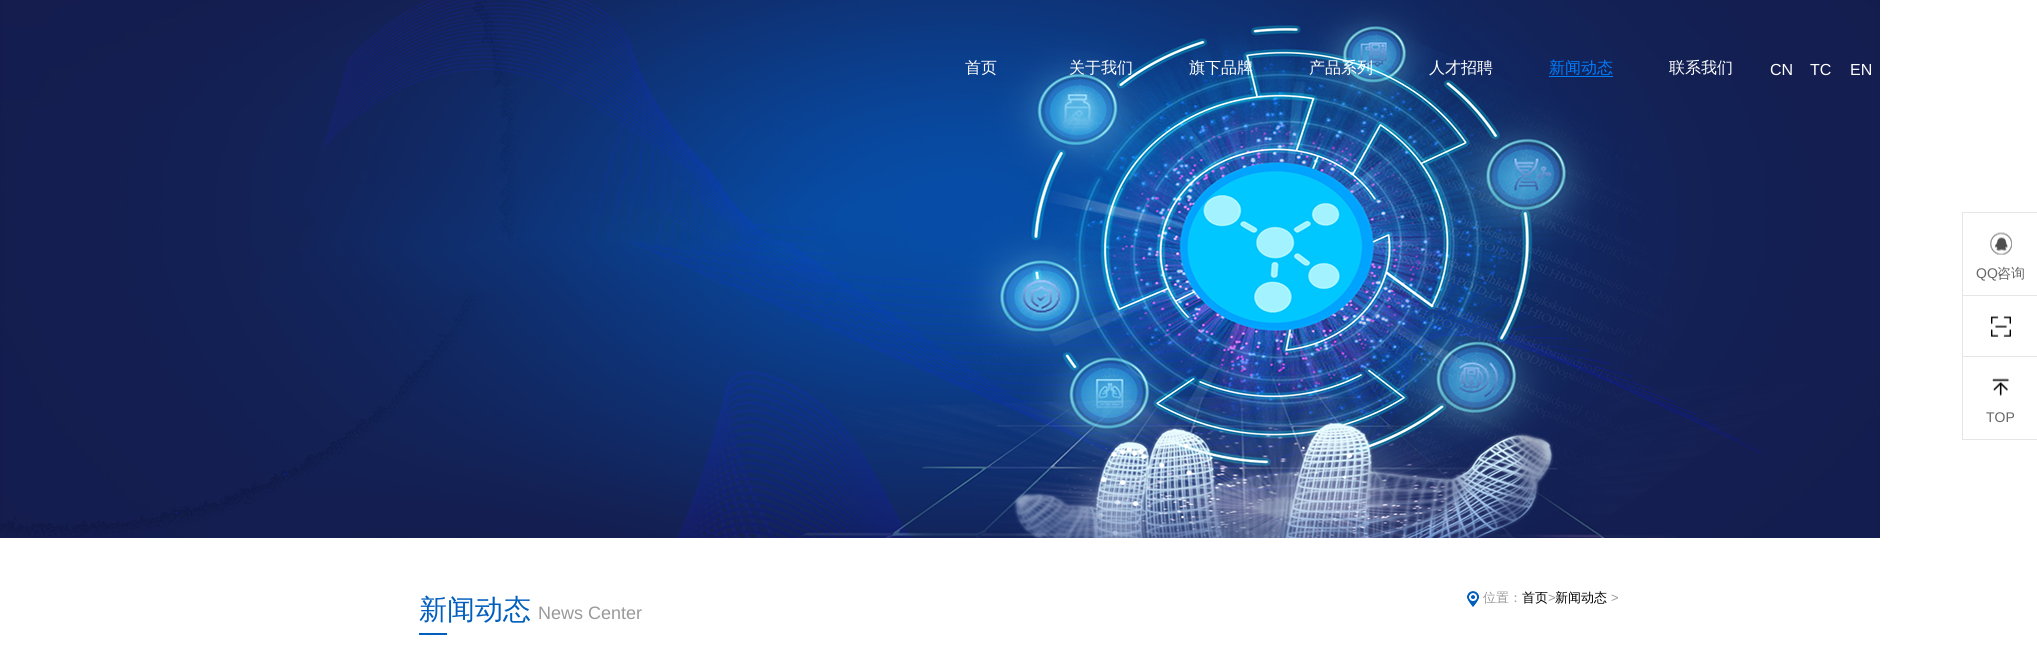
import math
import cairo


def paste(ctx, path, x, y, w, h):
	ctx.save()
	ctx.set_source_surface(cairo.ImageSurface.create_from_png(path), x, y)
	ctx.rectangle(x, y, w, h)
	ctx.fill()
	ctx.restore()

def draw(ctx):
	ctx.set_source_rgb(1, 1, 1)
	ctx.paint()
	paste(ctx, 'media/1.png', 0, 0, 1880, 538)
	ctx.select_font_face('WenQuanYi Zen Hei Medium')
	ctx.set_font_size(16)
	ctx.set_source_rgb(1, 1, 1)
	for x, y, s in [
		(965, 73, '首页'),
		(1069, 73, '关于我们'),
		(1189, 73, '旗下品牌'),
		(1309, 73, '产品系列'),
		(1429, 73, '人才招聘'),
	]:
		ctx.move_to(x, y)
		ctx.show_text(s)
	ctx.set_source_rgb(0, 0.494, 1)
	ctx.move_to(1549, 73)
	ctx.show_text('新闻动态')
	ctx.rectangle(1549, 76, 64, 1)
	ctx.fill()
	ctx.set_source_rgb(1, 1, 1)
	ctx.move_to(1669, 73)
	ctx.show_text('联系我们')
	ctx.select_font_face('Liberation Sans')
	for x, y, s in [
		(1770, 75, 'CN'),
		(1810, 75, 'TC'),
		(1850, 75, 'EN'),
	]:
		ctx.move_to(x, y)
		ctx.show_text(s)
	ctx.select_font_face('WenQuanYi Zen Hei Medium')
	ctx.set_font_size(28)
	ctx.set_source_rgb(0, 0.369, 0.745)
	ctx.move_to(419, 619)
	ctx.show_text('新闻动态')
	ctx.select_font_face('Liberation Sans')
	ctx.set_font_size(18)
	ctx.set_source_rgb(0.6, 0.6, 0.6)
	ctx.move_to(538, 619)
	ctx.show_text('News Center')
	ctx.set_source_rgb(0, 0.369, 0.745)
	ctx.rectangle(419, 633, 28, 2)
	ctx.fill()
	paste(ctx, 'media/2.png', 1467, 591, 12, 16)
	ctx.select_font_face('WenQuanYi Zen Hei Medium')
	ctx.set_font_size(13)
	ctx.set_source_rgb(0.6, 0.6, 0.6)
	ctx.move_to(1483, 602)
	ctx.show_text('位置：')
	ctx.set_source_rgb(0, 0, 0)
	ctx.move_to(1522, 602)
	ctx.show_text('首页')
	ctx.select_font_face('Liberation Sans')
	ctx.set_source_rgb(0.6, 0.6, 0.6)
	ctx.move_to(1548, 602)
	ctx.show_text('>')
	ctx.select_font_face('WenQuanYi Zen Hei Medium')
	ctx.set_source_rgb(0, 0, 0)
	ctx.move_to(1555, 602)
	ctx.show_text('新闻动态')
	ctx.select_font_face('Liberation Sans')
	ctx.set_source_rgb(0.6, 0.6, 0.6)
	ctx.move_to(1611, 602)
	ctx.show_text('>')
	ctx.set_source_rgb(0.902, 0.902, 0.902)
	ctx.rectangle(1962, 212, 75, 1)
	ctx.rectangle(1962, 212, 1, 228)
	ctx.rectangle(1963, 295, 74, 1)
	ctx.fill()
	paste(ctx, 'media/3.png', 1990, 232, 22, 23)
	ctx.set_font_size(14)
	ctx.set_source_rgb(0.4, 0.4, 0.4)
	ctx.move_to(1976, 278)
	ctx.show_text('QQ')
	ctx.select_font_face('WenQuanYi Zen Hei Medium')
	ctx.move_to(1997, 278)
	ctx.show_text('咨询')
	ctx.set_source_rgb(0.902, 0.902, 0.902)
	ctx.rectangle(1963, 356, 74, 1)
	ctx.fill()
	paste(ctx, 'media/4.png', 1991, 316, 20, 21)
	ctx.rectangle(1963, 439, 74, 1)
	ctx.fill()
	paste(ctx, 'media/5.png', 1992, 378, 17, 18)
	ctx.select_font_face('Liberation Sans')
	ctx.set_source_rgb(0.4, 0.4, 0.4)
	ctx.move_to(1986, 422)
	ctx.show_text('TOP')


surface = cairo.ImageSurface(cairo.FORMAT_RGB24, 2037, 651)
ctx = cairo.Context(surface)
options = cairo.FontOptions()
options.set_hint_metrics(cairo.HINT_METRICS_OFF)
options.set_hint_style(cairo.HINT_STYLE_NONE)
ctx.set_font_options(options)
ctx.set_miter_limit(4)
draw(ctx)
surface.write_to_png('image.png')
